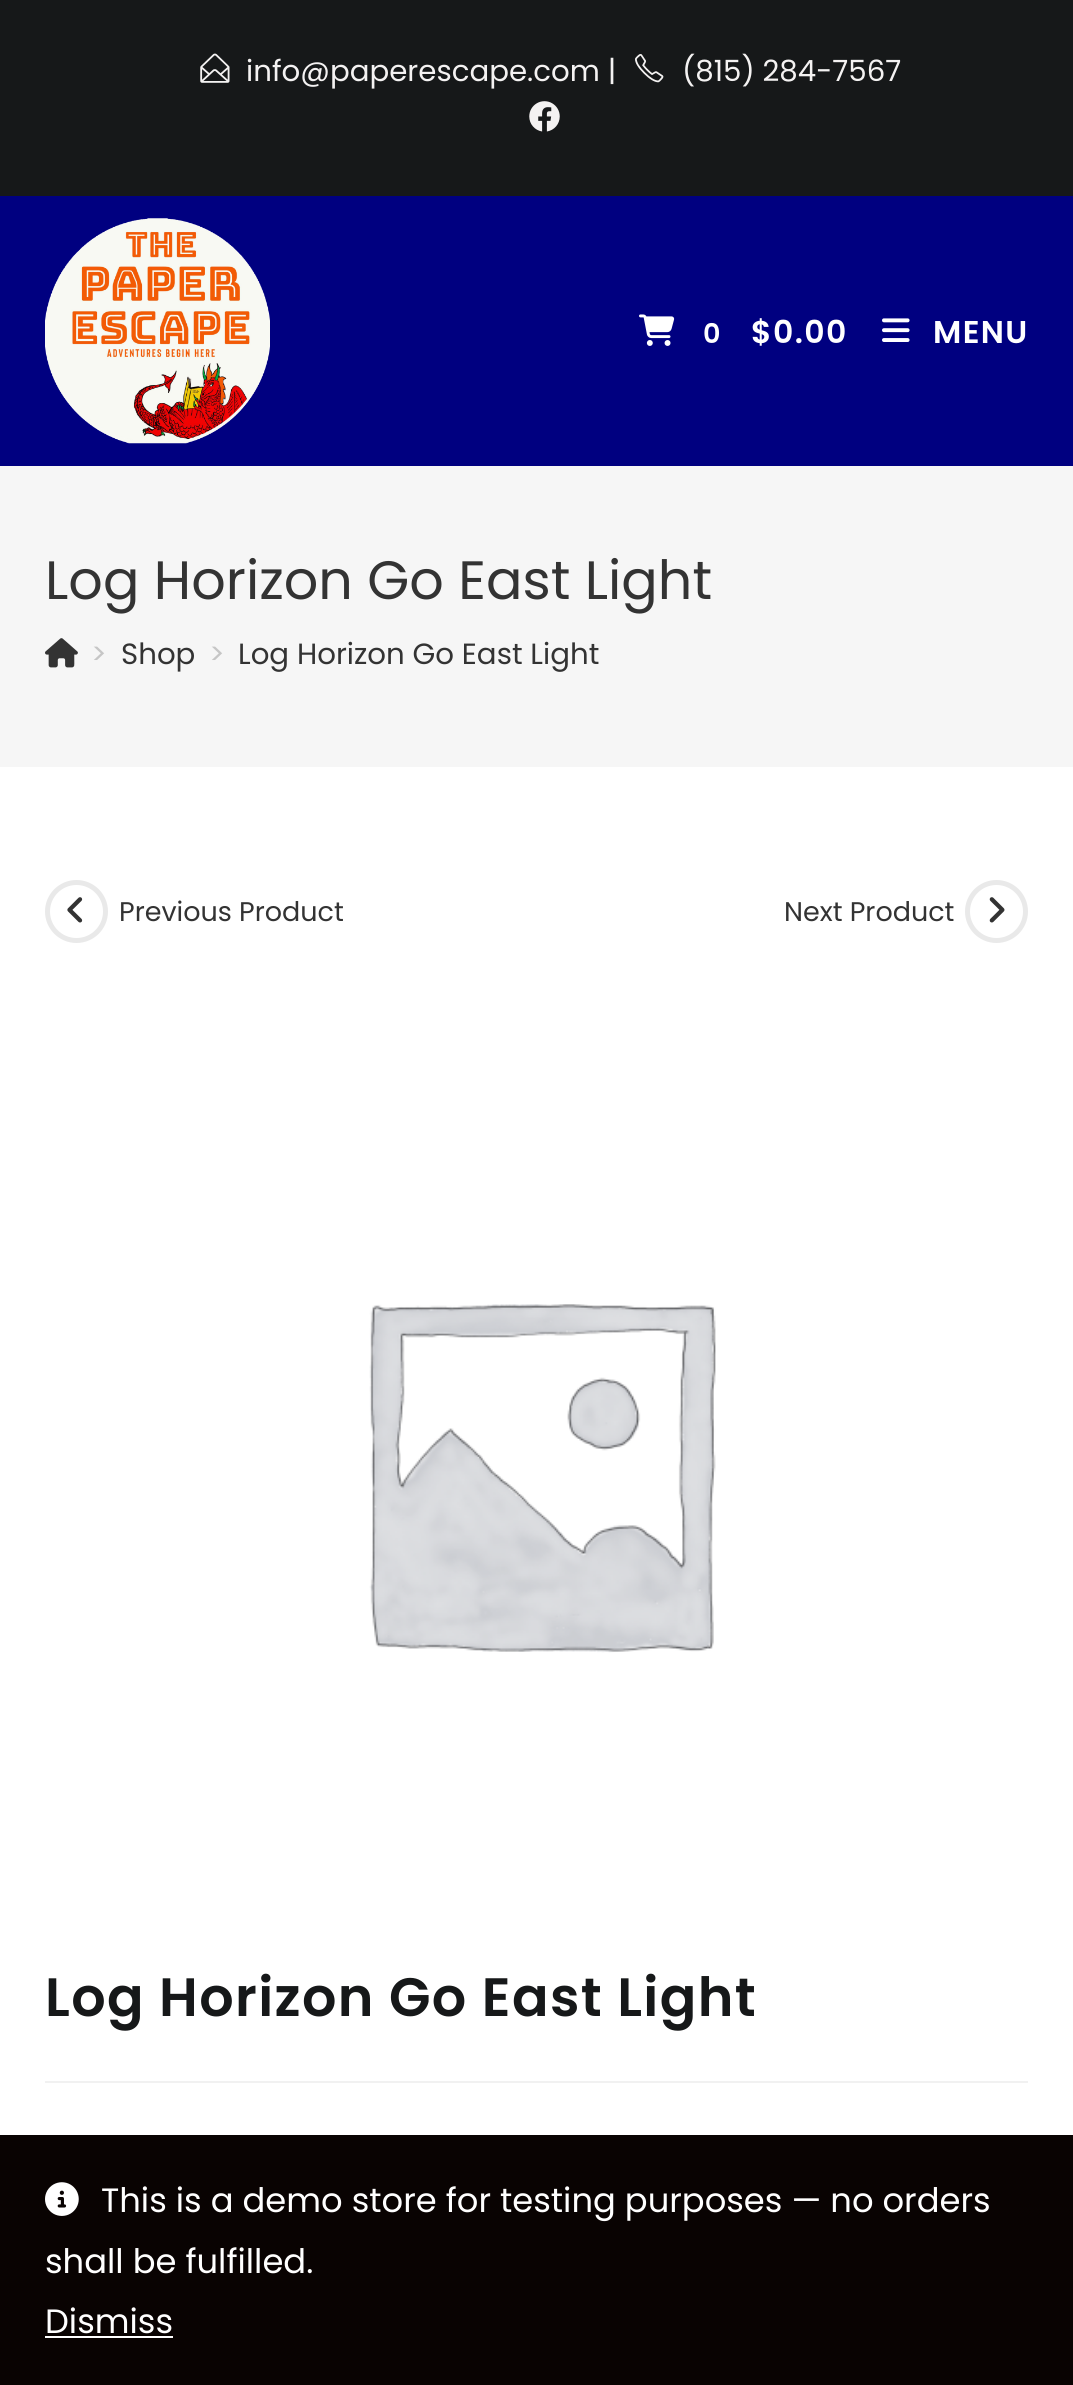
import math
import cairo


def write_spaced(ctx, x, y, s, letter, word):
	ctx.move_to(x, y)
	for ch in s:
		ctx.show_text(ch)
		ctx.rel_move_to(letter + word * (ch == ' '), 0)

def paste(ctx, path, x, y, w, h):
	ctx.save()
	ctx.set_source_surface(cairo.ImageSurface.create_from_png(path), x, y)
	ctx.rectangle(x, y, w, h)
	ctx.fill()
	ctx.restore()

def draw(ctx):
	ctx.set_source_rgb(1, 1, 1)
	ctx.paint()
	ctx.set_source_rgb(0.086, 0.094, 0.098)
	ctx.rectangle(0, 0, 1073, 196)
	ctx.fill()
	paste(ctx, 'media/1.png', 200, 53, 30, 30)
	ctx.select_font_face('Poppins')
	ctx.set_font_size(29.25)
	ctx.set_source_rgb(0.957, 0.949, 0.949)
	ctx.move_to(246, 81)
	ctx.show_text('info@paperescape.com |')
	paste(ctx, 'media/2.png', 635, 54, 29, 29)
	ctx.move_to(682, 81)
	ctx.show_text('(815) 284-7567')
	paste(ctx, 'media/3.png', 529, 101, 31, 31)
	ctx.set_source_rgb(0, 0, 0.502)
	ctx.rectangle(0, 196, 1073, 270)
	ctx.fill()
	paste(ctx, 'media/4.png', 45, 218, 225, 226)
	paste(ctx, 'media/5.png', 639, 314, 36, 32)
	ctx.select_font_face('Poppins SemiBold')
	ctx.set_font_size(27)
	ctx.set_source_rgb(1, 1, 1)
	write_spaced(ctx, 703, 343, '0', 1.35, 0)
	ctx.set_font_size(31.5)
	write_spaced(ctx, 751, 343, '$0.00', 1.35, 0)
	paste(ctx, 'media/6.png', 882, 318, 28, 24)
	write_spaced(ctx, 933, 343, 'MENU', 1.35, 0)
	ctx.set_source_rgb(0.961, 0.961, 0.961)
	ctx.rectangle(0, 466, 1073, 301)
	ctx.fill()
	ctx.select_font_face('Poppins')
	ctx.set_font_size(54)
	ctx.set_source_rgb(0.2, 0.2, 0.2)
	ctx.move_to(45, 599)
	ctx.show_text('Log Horizon Go East Light')
	paste(ctx, 'media/7.png', 45, 638, 33, 30)
	ctx.set_font_size(29.25)
	ctx.set_source_rgb(0.776, 0.776, 0.776)
	ctx.move_to(91, 664)
	ctx.show_text('>')
	ctx.set_source_rgb(0.2, 0.2, 0.2)
	ctx.move_to(121, 664)
	ctx.show_text('Shop')
	ctx.set_source_rgb(0.776, 0.776, 0.776)
	ctx.move_to(209, 664)
	ctx.show_text('>')
	ctx.set_source_rgb(0.2, 0.2, 0.2)
	ctx.move_to(238, 664)
	ctx.show_text('Log Horizon Go East Light')
	ctx.new_path()
	ctx.arc(76.5, 911.5, 29, 0, 2 * math.pi)
	ctx.set_source_rgb(0.914, 0.914, 0.914)
	ctx.set_line_width(5)
	ctx.stroke()
	paste(ctx, 'media/8.png', 67, 897, 16, 26)
	ctx.set_font_size(27)
	ctx.set_source_rgb(0.2, 0.2, 0.2)
	ctx.move_to(119, 921)
	ctx.show_text('Previous Product')
	ctx.move_to(784, 921)
	ctx.show_text('Next Product')
	ctx.new_path()
	ctx.arc(996.5, 911.5, 29, 0, 2 * math.pi)
	ctx.set_source_rgb(0.914, 0.914, 0.914)
	ctx.stroke()
	paste(ctx, 'media/9.png', 989, 897, 16, 26)
	paste(ctx, 'media/10.png', 369, 1304, 347, 349)
	ctx.set_source_rgb(0.945, 0.945, 0.945)
	ctx.rectangle(45, 2081, 983, 2)
	ctx.fill()
	ctx.select_font_face('Poppins SemiBold')
	ctx.set_font_size(54)
	ctx.set_source_rgb(0.086, 0.094, 0.098)
	write_spaced(ctx, 45, 2016, 'Log Horizon Go East Light', 1.35, 0)
	ctx.set_source_rgb(0.039, 0.012, 0.008)
	ctx.rectangle(0, 2135, 1073, 250)
	ctx.fill()
	paste(ctx, 'media/11.png', 45, 2182, 34, 34)
	ctx.select_font_face('Poppins')
	ctx.set_font_size(33.75)
	ctx.set_source_rgb(1, 1, 1)
	for x, y, s in [
		(101, 2212, 'This is a demo store for testing purposes — no orders'),
		(45, 2273, 'shall be fulfilled.'),
		(45, 2333, 'Dismiss'),
	]:
		ctx.move_to(x, y)
		ctx.show_text(s)
	ctx.rectangle(45, 2336, 128, 2)
	ctx.fill()


surface = cairo.ImageSurface(cairo.FORMAT_RGB24, 1073, 2385)
ctx = cairo.Context(surface)
options = cairo.FontOptions()
options.set_hint_metrics(cairo.HINT_METRICS_OFF)
options.set_hint_style(cairo.HINT_STYLE_NONE)
ctx.set_font_options(options)
ctx.set_miter_limit(4)
draw(ctx)
surface.write_to_png('image.png')
